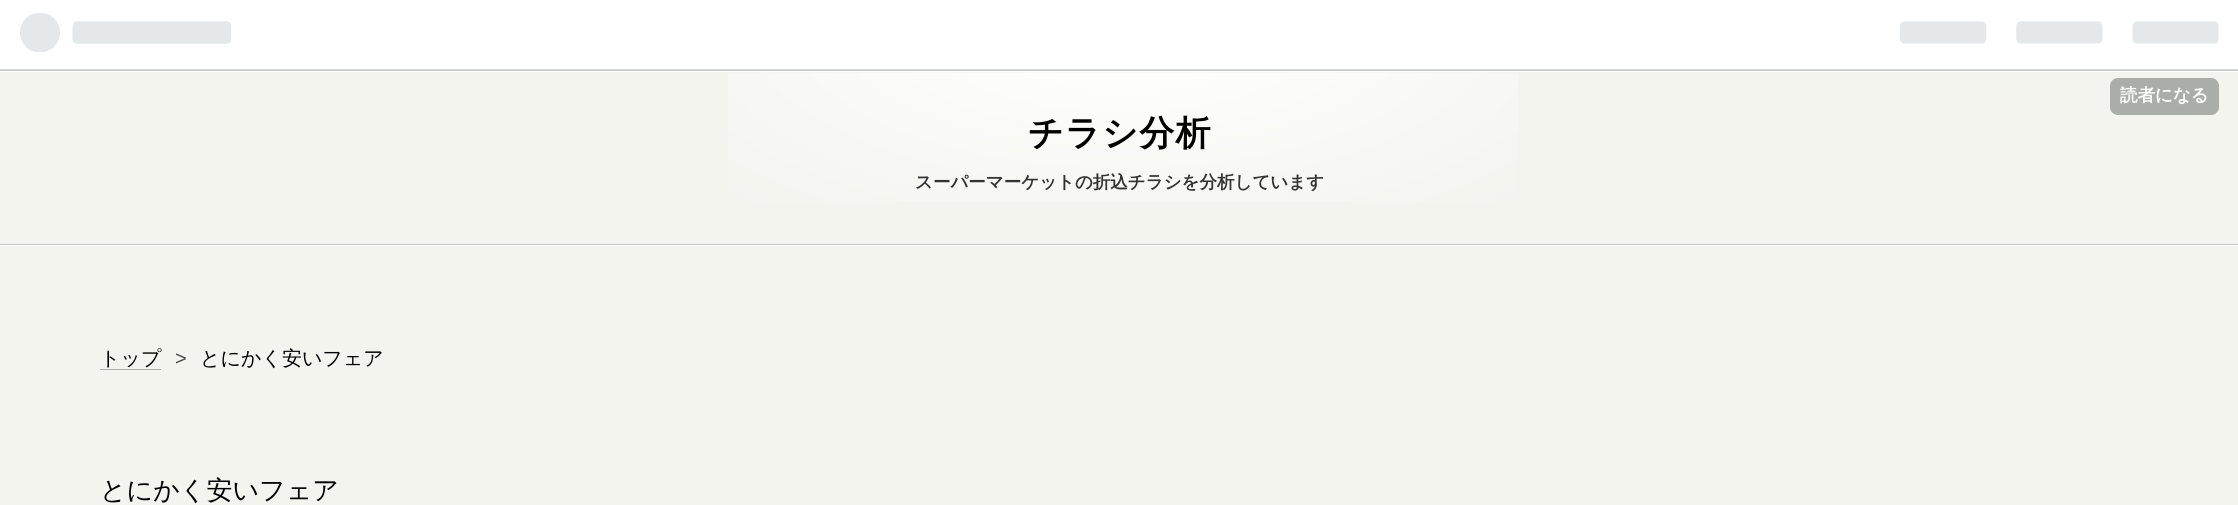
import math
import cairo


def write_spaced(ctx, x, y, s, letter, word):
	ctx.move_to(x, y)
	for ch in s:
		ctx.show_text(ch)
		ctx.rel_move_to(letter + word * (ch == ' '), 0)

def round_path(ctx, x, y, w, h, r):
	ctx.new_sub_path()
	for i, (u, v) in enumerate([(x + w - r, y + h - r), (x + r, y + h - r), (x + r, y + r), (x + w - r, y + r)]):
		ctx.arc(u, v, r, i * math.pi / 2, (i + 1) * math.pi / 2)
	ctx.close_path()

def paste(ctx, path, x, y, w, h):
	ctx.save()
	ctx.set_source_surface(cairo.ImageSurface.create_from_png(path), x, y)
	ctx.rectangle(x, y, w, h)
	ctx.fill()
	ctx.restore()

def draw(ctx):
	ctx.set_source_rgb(0.957, 0.957, 0.937)
	ctx.paint()
	ctx.set_source_rgb(1, 1, 1)
	ctx.rectangle(0, 0, 2238, 69)
	ctx.fill()
	ctx.set_source_rgb(0.824, 0.847, 0.867)
	ctx.rectangle(0, 69, 2238, 1)
	ctx.fill()
	paste(ctx, 'media/1.png', 20, 13, 211, 40)
	paste(ctx, 'media/2.png', 1900, 21, 319, 23)
	ctx.set_source_rgb(0.671, 0.678, 0.671)
	round_path(ctx, 2110, 78, 109, 37, 8)
	ctx.fill()
	ctx.select_font_face('WenQuanYi Zen Hei', cairo.FONT_SLANT_NORMAL, cairo.FONT_WEIGHT_BOLD)
	ctx.set_font_size(17.5)
	ctx.set_source_rgb(1, 1, 1)
	ctx.move_to(2120, 101)
	ctx.show_text('読者になる')
	ctx.set_source_rgb(0.788, 0.788, 0.765)
	ctx.rectangle(0, 70, 2238, 1)
	ctx.fill()
	ctx.rectangle(0, 244, 2238, 1)
	ctx.fill()
	paste(ctx, 'media/3.png', 728, 72, 790, 130)
	ctx.set_source_rgb(1, 1, 1)
	ctx.rectangle(0, 71, 2238, 1)
	ctx.fill()
	ctx.set_font_size(35)
	ctx.set_source_rgb(0, 0, 0)
	write_spaced(ctx, 1028, 145, 'チラシ分析', 1.25, 0)
	ctx.set_font_size(17.5)
	ctx.set_source_rgb(0.2, 0.2, 0.2)
	ctx.move_to(915, 188)
	ctx.show_text('スーパーマーケットの折込チラシを分析しています')
	ctx.set_source_rgb(1, 1, 1)
	ctx.rectangle(0, 245, 2238, 1)
	ctx.fill()
	ctx.select_font_face('WenQuanYi Zen Hei Medium')
	ctx.set_font_size(20)
	ctx.set_source_rgb(0, 0, 0)
	ctx.move_to(100, 365)
	ctx.show_text('トップ')
	ctx.set_source_rgb(0.667, 0.667, 0.667)
	ctx.rectangle(100, 369, 61, 1)
	ctx.fill()
	ctx.select_font_face('Liberation Sans')
	ctx.set_source_rgb(0.286, 0.286, 0.282)
	ctx.move_to(175, 365)
	ctx.show_text('>')
	ctx.select_font_face('WenQuanYi Zen Hei Medium')
	ctx.set_source_rgb(0, 0, 0)
	ctx.move_to(200, 365)
	ctx.show_text('とにかく安いフェア')
	ctx.set_font_size(26)
	ctx.move_to(100, 499)
	ctx.show_text('とにかく安いフェア')


surface = cairo.ImageSurface(cairo.FORMAT_RGB24, 2238, 505)
ctx = cairo.Context(surface)
options = cairo.FontOptions()
options.set_hint_metrics(cairo.HINT_METRICS_OFF)
options.set_hint_style(cairo.HINT_STYLE_NONE)
ctx.set_font_options(options)
ctx.set_miter_limit(4)
draw(ctx)
surface.write_to_png('image.png')
